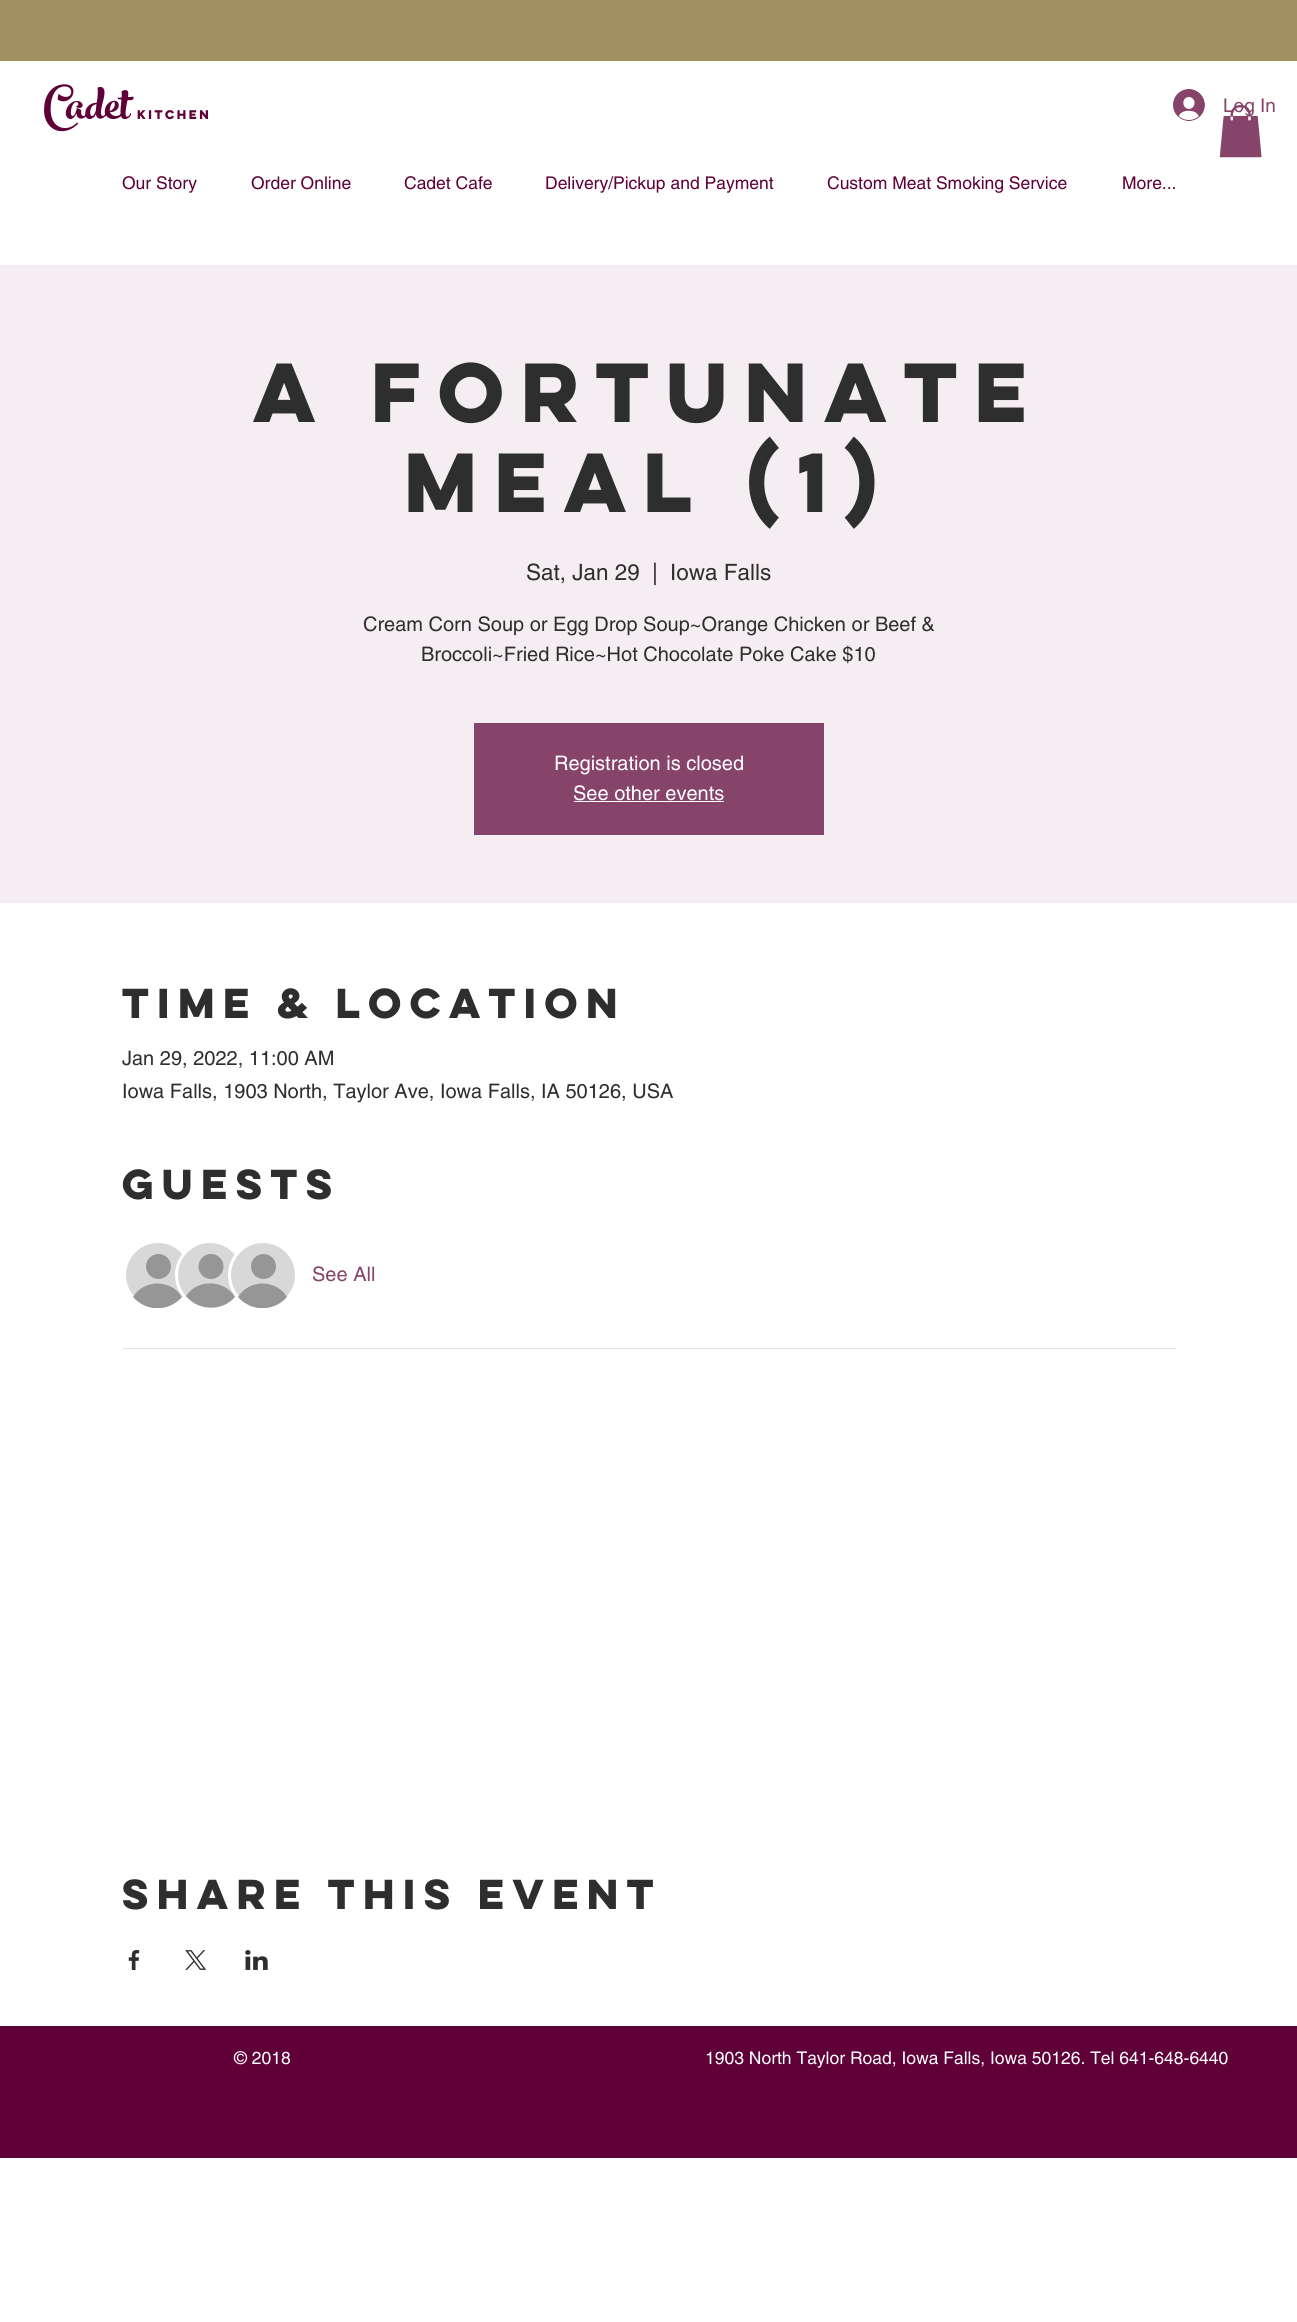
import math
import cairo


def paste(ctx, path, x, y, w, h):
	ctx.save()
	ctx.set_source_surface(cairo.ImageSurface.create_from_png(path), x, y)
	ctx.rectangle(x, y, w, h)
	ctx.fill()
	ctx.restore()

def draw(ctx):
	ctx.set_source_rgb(1, 1, 1)
	ctx.paint()
	ctx.set_source_rgb(0.635, 0.569, 0.376)
	ctx.rectangle(0, 0, 1297, 61)
	ctx.fill()
	ctx.select_font_face('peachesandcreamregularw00')
	ctx.set_font_size(68)
	ctx.set_source_rgb(0.373, 0, 0.22)
	ctx.move_to(44, 119)
	ctx.show_text('Cadet')
	ctx.select_font_face('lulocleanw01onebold', cairo.FONT_SLANT_NORMAL, cairo.FONT_WEIGHT_BOLD)
	ctx.set_font_size(11.25)
	ctx.move_to(137, 119)
	ctx.show_text('Kitchen')
	paste(ctx, 'media/1.png', 1173, 89, 32, 32)
	ctx.select_font_face('helvetica')
	ctx.set_font_size(19)
	ctx.set_source_rgb(0.529, 0.267, 0.42)
	ctx.move_to(1223, 112)
	ctx.show_text('Log In')
	paste(ctx, 'media/2.png', 1219, 105, 43, 53)
	ctx.set_font_size(17.5)
	ctx.set_source_rgb(0.373, 0, 0.22)
	for x, y, s in [
		(122, 189, 'Our Story'),
		(251, 189, 'Order Online'),
		(404, 189, 'Cadet Cafe'),
		(545, 189, 'Delivery/Pickup and Payment'),
		(827, 189, 'Custom Meat Smoking Service'),
		(1122, 189, 'More...'),
	]:
		ctx.move_to(x, y)
		ctx.show_text(s)
	ctx.set_source_rgb(0.957, 0.929, 0.945)
	ctx.rectangle(0, 265, 1297, 638)
	ctx.fill()
	ctx.select_font_face('lulocleanw01onebold', cairo.FONT_SLANT_NORMAL, cairo.FONT_WEIGHT_BOLD)
	ctx.set_font_size(75)
	ctx.set_source_rgb(0.184, 0.18, 0.18)
	ctx.move_to(253, 422)
	ctx.show_text('A Fortunate')
	ctx.move_to(404, 512)
	ctx.show_text('Meal (1)')
	ctx.select_font_face('helvetica')
	ctx.set_font_size(22.5)
	for x, y, s in [
		(526, 580, 'Sat, Jan 29'),
		(652, 580, '|'),
		(670, 580, 'Iowa Falls'),
	]:
		ctx.move_to(x, y)
		ctx.show_text(s)
	ctx.set_font_size(20)
	ctx.move_to(363, 631)
	ctx.show_text('Cream Corn Soup or Egg Drop Soup~Orange Chicken or Beef &')
	ctx.move_to(421, 661)
	ctx.show_text('Broccoli~Fried Rice~Hot Chocolate Poke Cake $10')
	ctx.set_source_rgb(0.529, 0.267, 0.42)
	ctx.rectangle(474, 723, 350, 112)
	ctx.fill()
	ctx.set_source_rgb(1, 1, 1)
	ctx.move_to(554, 770)
	ctx.show_text('Registration is closed')
	ctx.move_to(573, 800)
	ctx.show_text('See other events')
	ctx.rectangle(574, 801, 150, 1)
	ctx.fill()
	ctx.select_font_face('lulocleanw01onebold', cairo.FONT_SLANT_NORMAL, cairo.FONT_WEIGHT_BOLD)
	ctx.set_font_size(37.5)
	ctx.set_source_rgb(0.184, 0.18, 0.18)
	ctx.move_to(122, 1018)
	ctx.show_text('Time & Location')
	ctx.select_font_face('helvetica')
	ctx.set_font_size(20)
	ctx.move_to(122, 1065)
	ctx.show_text('Jan 29, 2022, 11:00 AM')
	ctx.move_to(122, 1098)
	ctx.show_text('Iowa Falls, 1903 North, Taylor Ave, Iowa Falls, IA 50126, USA')
	ctx.select_font_face('lulocleanw01onebold', cairo.FONT_SLANT_NORMAL, cairo.FONT_WEIGHT_BOLD)
	ctx.set_font_size(37.5)
	ctx.move_to(122, 1199)
	ctx.show_text('Guests')
	ctx.set_source_rgb(0.847, 0.847, 0.847)
	ctx.new_path()
	ctx.arc(158, 1275, 33.5, 0, 2 * math.pi)
	ctx.fill_preserve()
	ctx.set_source_rgb(1, 1, 1)
	ctx.set_line_width(3)
	ctx.stroke()
	ctx.set_source_rgb(0.588, 0.588, 0.588)
	ctx.arc(158.5, 1266.5, 12.5, 0, 2 * math.pi)
	ctx.fill()
	ctx.save()
	ctx.rectangle(125, 1243, 65, 65)
	ctx.clip()
	ctx.new_path()
	ctx.move_to(182, 1297)
	ctx.curve_to(169, 1312, 146, 1312, 133, 1297)
	ctx.curve_to(144, 1279, 171, 1279, 182, 1297)
	ctx.close_path()
	ctx.fill()
	ctx.restore()
	ctx.set_source_rgb(0.847, 0.847, 0.847)
	ctx.arc(210, 1275, 33.5, 0, 2 * math.pi)
	ctx.fill_preserve()
	ctx.set_source_rgb(1, 1, 1)
	ctx.stroke()
	ctx.set_source_rgb(0.588, 0.588, 0.588)
	ctx.arc(211, 1266.5, 12.5, 0, 2 * math.pi)
	ctx.fill()
	ctx.new_path()
	ctx.move_to(235, 1297)
	ctx.curve_to(222, 1312, 198, 1311, 186, 1296)
	ctx.curve_to(197, 1279, 224, 1279, 235, 1297)
	ctx.close_path()
	ctx.fill()
	ctx.set_source_rgb(0.847, 0.847, 0.847)
	ctx.arc(263, 1275, 33.5, 0, 2 * math.pi)
	ctx.fill_preserve()
	ctx.set_source_rgb(1, 1, 1)
	ctx.stroke()
	ctx.set_source_rgb(0.588, 0.588, 0.588)
	ctx.arc(263.5, 1266.5, 12.5, 0, 2 * math.pi)
	ctx.fill()
	ctx.save()
	ctx.rectangle(230, 1243, 65, 65)
	ctx.clip()
	ctx.new_path()
	ctx.move_to(287, 1297)
	ctx.curve_to(274, 1312, 251, 1312, 238, 1297)
	ctx.curve_to(249, 1279, 276, 1279, 287, 1297)
	ctx.close_path()
	ctx.fill()
	ctx.restore()
	ctx.select_font_face('helvetica')
	ctx.set_font_size(20)
	ctx.set_source_rgb(0.529, 0.267, 0.42)
	ctx.move_to(312, 1281)
	ctx.show_text('See All')
	ctx.set_source_rgb(0.878, 0.878, 0.878)
	ctx.rectangle(123, 1348, 1053, 1)
	ctx.fill()
	ctx.select_font_face('lulocleanw01onebold', cairo.FONT_SLANT_NORMAL, cairo.FONT_WEIGHT_BOLD)
	ctx.set_font_size(37.5)
	ctx.set_source_rgb(0.184, 0.18, 0.18)
	ctx.move_to(122, 1909)
	ctx.show_text('Share This Event')
	paste(ctx, 'media/3.png', 128, 1950, 12, 20)
	paste(ctx, 'media/4.png', 185, 1950, 22, 20)
	paste(ctx, 'media/5.png', 245, 1950, 23, 20)
	ctx.set_source_rgb(0.373, 0, 0.22)
	ctx.rectangle(0, 2026, 1297, 132)
	ctx.fill()
	ctx.select_font_face('helvetica')
	ctx.set_font_size(17.5)
	ctx.set_source_rgb(1, 1, 1)
	ctx.move_to(234, 2064)
	ctx.show_text('© 2018')
	ctx.move_to(705, 2064)
	ctx.show_text('1903 North Taylor Road, Iowa Falls, Iowa 50126. Tel 641-648-6440')


surface = cairo.ImageSurface(cairo.FORMAT_RGB24, 1297, 2322)
ctx = cairo.Context(surface)
options = cairo.FontOptions()
options.set_hint_metrics(cairo.HINT_METRICS_OFF)
options.set_hint_style(cairo.HINT_STYLE_NONE)
ctx.set_font_options(options)
ctx.set_miter_limit(4)
draw(ctx)
surface.write_to_png('image.png')
